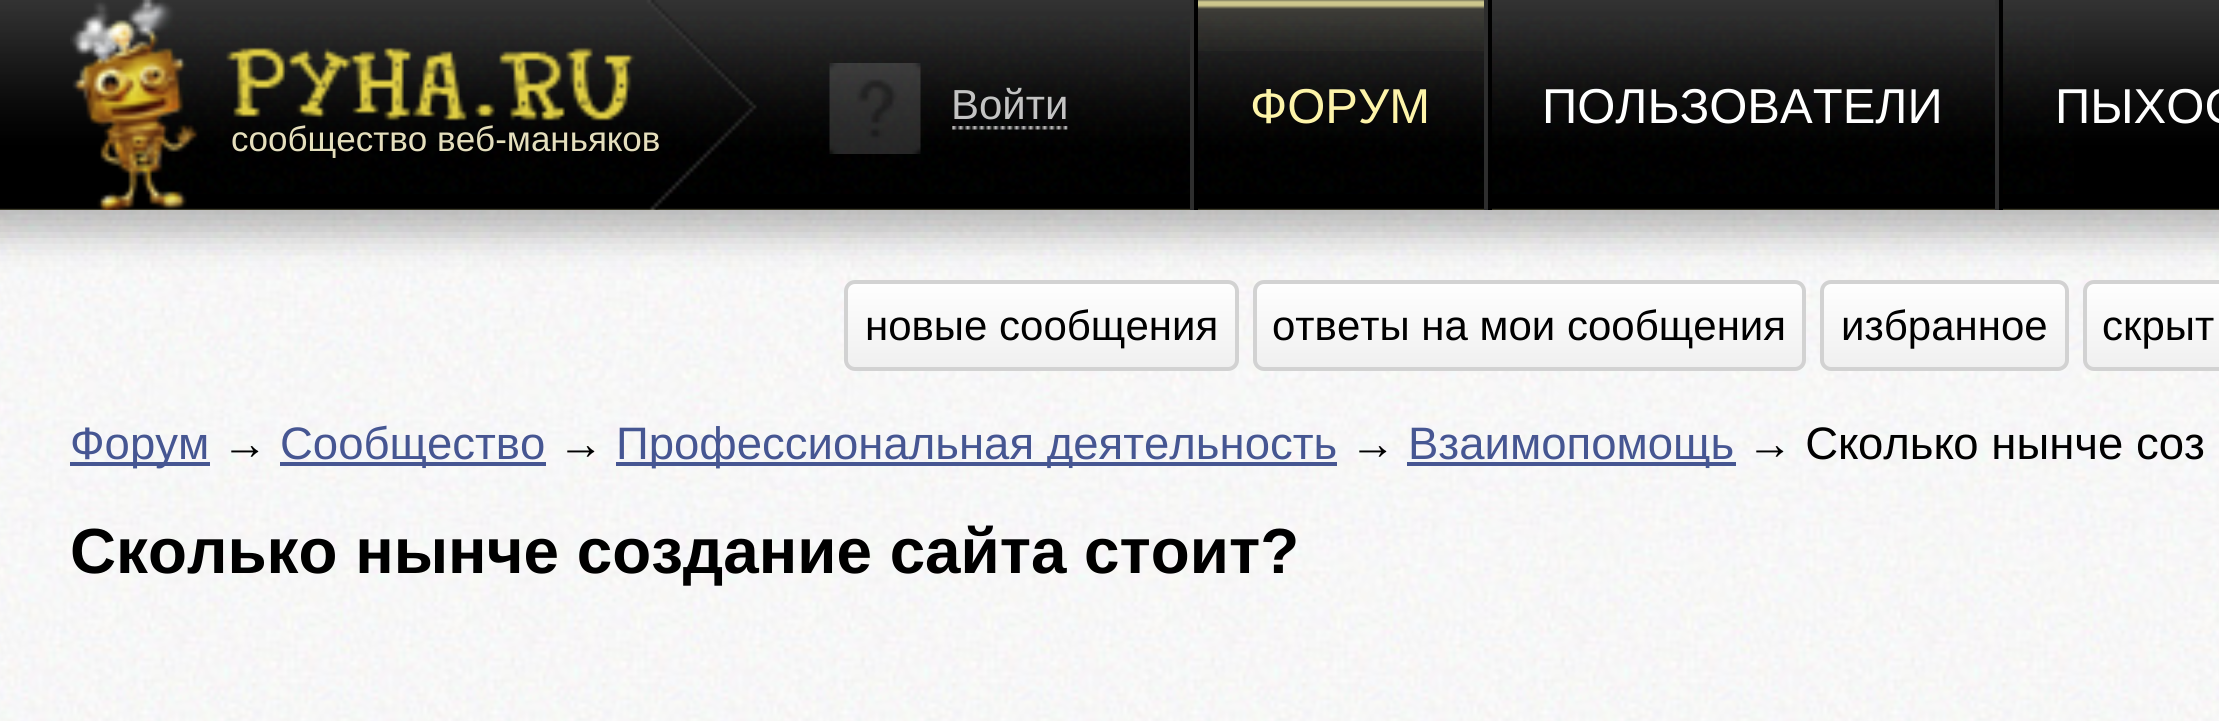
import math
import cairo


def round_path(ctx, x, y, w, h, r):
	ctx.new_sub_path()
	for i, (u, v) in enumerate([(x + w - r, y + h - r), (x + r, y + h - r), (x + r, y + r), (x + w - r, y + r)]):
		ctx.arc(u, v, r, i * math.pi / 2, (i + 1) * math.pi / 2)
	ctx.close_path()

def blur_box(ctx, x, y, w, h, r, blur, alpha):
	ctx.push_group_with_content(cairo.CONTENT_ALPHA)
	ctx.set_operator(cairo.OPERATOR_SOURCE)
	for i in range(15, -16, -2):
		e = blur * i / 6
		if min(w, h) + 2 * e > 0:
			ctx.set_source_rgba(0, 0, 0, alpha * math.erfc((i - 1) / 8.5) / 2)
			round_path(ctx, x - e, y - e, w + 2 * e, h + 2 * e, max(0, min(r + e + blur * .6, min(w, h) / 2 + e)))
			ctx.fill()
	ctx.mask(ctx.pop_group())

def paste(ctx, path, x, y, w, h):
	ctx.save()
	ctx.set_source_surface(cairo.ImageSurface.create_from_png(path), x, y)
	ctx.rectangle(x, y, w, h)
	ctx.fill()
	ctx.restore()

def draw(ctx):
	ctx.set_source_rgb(1, 1, 1)
	ctx.paint()
	paste(ctx, 'media/1.png', 0, 210, 2219, 511)
	ctx.set_source_rgb(0, 0, 0)
	blur_box(ctx, -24, -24, 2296, 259, 0, 17.5, 0.25)
	ctx.set_source_rgb(0, 0, 0)
	ctx.rectangle(0, 0, 2219, 210)
	ctx.fill()
	paste(ctx, 'media/2.png', 145, 16, 1929, 178)
	paste(ctx, 'media/3.png', 0, 0, 2219, 210)
	ctx.set_source_rgb(0.18, 0.18, 0.18)
	ctx.rectangle(1190, 0, 4, 210)
	ctx.fill()
	paste(ctx, 'media/4.png', 829, 63, 92, 91)
	ctx.select_font_face('Liberation Sans')
	ctx.set_font_size(42)
	ctx.set_source_rgb(0.765, 0.765, 0.765)
	ctx.move_to(951, 119)
	ctx.show_text('Войти')
	paste(ctx, 'media/5.png', 952, 126, 116, 4)
	paste(ctx, 'media/6.png', 1198, 0, 286, 51)
	ctx.set_source_rgb(0.18, 0.18, 0.18)
	ctx.rectangle(1484, 0, 4, 210)
	ctx.fill()
	ctx.set_source_rgb(0, 0, 0)
	ctx.rectangle(1194, 0, 4, 210)
	ctx.fill()
	ctx.set_font_size(49)
	ctx.set_source_rgb(0.992, 0.957, 0.663)
	ctx.move_to(1250, 123)
	ctx.show_text('ФОРУМ')
	ctx.set_source_rgb(0.18, 0.18, 0.18)
	ctx.rectangle(1995, 0, 4, 210)
	ctx.fill()
	ctx.set_source_rgb(0, 0, 0)
	ctx.rectangle(1488, 0, 4, 210)
	ctx.fill()
	ctx.set_source_rgb(1, 1, 1)
	ctx.move_to(1542, 123)
	ctx.show_text('ПОЛЬЗОВАТЕЛИ')
	ctx.set_source_rgb(0, 0, 0)
	ctx.rectangle(1999, 0, 4, 210)
	ctx.fill()
	ctx.set_source_rgb(1, 1, 1)
	ctx.move_to(2055, 123)
	ctx.show_text('ПЫХОС')
	paste(ctx, 'media/7.png', 70, 0, 687, 210)
	ctx.set_font_size(35)
	ctx.set_source_rgb(0.898, 0.875, 0.741)
	ctx.move_to(231, 151)
	ctx.show_text('сообщество веб-маньяков')
	ctx.save()
	round_path(ctx, 844, 280, 395, 91, 11)
	ctx.clip()
	gradient = cairo.LinearGradient(847, 368, 847, 284)
	gradient.add_color_stop_rgba(0, 0.941, 0.941, 0.941, 1)
	gradient.add_color_stop_rgba(1, 0.996, 0.996, 0.996, 1)
	ctx.set_source(gradient)
	ctx.rectangle(844, 284, 395, 84)
	ctx.fill()
	ctx.restore()
	round_path(ctx, 846, 282, 391, 87, 9)
	ctx.set_source_rgb(0.824, 0.824, 0.824)
	ctx.set_line_width(4)
	ctx.stroke()
	ctx.set_font_size(42)
	ctx.set_source_rgb(0, 0, 0)
	ctx.move_to(865, 340)
	ctx.show_text('новые сообщения')
	ctx.save()
	round_path(ctx, 1253, 280, 553, 91, 11)
	ctx.clip()
	gradient = cairo.LinearGradient(1257, 368, 1257, 284)
	gradient.add_color_stop_rgba(0, 0.941, 0.941, 0.941, 1)
	gradient.add_color_stop_rgba(1, 0.996, 0.996, 0.996, 1)
	ctx.set_source(gradient)
	ctx.rectangle(1253, 284, 553, 84)
	ctx.fill()
	ctx.restore()
	round_path(ctx, 1255, 282, 549, 87, 9)
	ctx.set_source_rgb(0.824, 0.824, 0.824)
	ctx.stroke()
	ctx.set_source_rgb(0, 0, 0)
	ctx.move_to(1272, 340)
	ctx.show_text('ответы на мои сообщения')
	ctx.save()
	round_path(ctx, 1820, 280, 249, 91, 11)
	ctx.clip()
	gradient = cairo.LinearGradient(1824, 368, 1824, 284)
	gradient.add_color_stop_rgba(0, 0.941, 0.941, 0.941, 1)
	gradient.add_color_stop_rgba(1, 0.996, 0.996, 0.996, 1)
	ctx.set_source(gradient)
	ctx.rectangle(1820, 284, 249, 84)
	ctx.fill()
	ctx.restore()
	round_path(ctx, 1822, 282, 245, 87, 9)
	ctx.set_source_rgb(0.824, 0.824, 0.824)
	ctx.stroke()
	ctx.set_source_rgb(0, 0, 0)
	ctx.move_to(1841, 340)
	ctx.show_text('избранное')
	ctx.save()
	round_path(ctx, 2083, 280, 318, 91, 11)
	ctx.clip()
	gradient = cairo.LinearGradient(2086, 368, 2086, 284)
	gradient.add_color_stop_rgba(0, 0.941, 0.941, 0.941, 1)
	gradient.add_color_stop_rgba(1, 0.996, 0.996, 0.996, 1)
	ctx.set_source(gradient)
	ctx.rectangle(2083, 284, 136, 84)
	ctx.fill()
	ctx.restore()
	round_path(ctx, 2085, 282, 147, 87, 9)
	ctx.set_source_rgb(0.824, 0.824, 0.824)
	ctx.stroke()
	ctx.set_source_rgb(0, 0, 0)
	ctx.move_to(2102, 340)
	ctx.show_text('скрыт')
	ctx.set_source_rgb(0.275, 0.337, 0.573)
	ctx.rectangle(70, 462, 140, 4)
	ctx.fill()
	ctx.set_font_size(45.5)
	ctx.move_to(70, 459)
	ctx.show_text('Форум')
	ctx.set_source_rgb(0, 0, 0)
	ctx.move_to(222, 459)
	ctx.show_text('→')
	ctx.set_source_rgb(0.275, 0.337, 0.573)
	ctx.rectangle(280, 462, 266, 4)
	ctx.fill()
	ctx.move_to(280, 459)
	ctx.show_text('Сообщество')
	ctx.set_source_rgb(0, 0, 0)
	ctx.move_to(558, 459)
	ctx.show_text('→')
	ctx.set_source_rgb(0.275, 0.337, 0.573)
	ctx.rectangle(616, 462, 721, 4)
	ctx.fill()
	ctx.move_to(616, 459)
	ctx.show_text('Профессиональная деятельность')
	ctx.set_source_rgb(0, 0, 0)
	ctx.move_to(1350, 459)
	ctx.show_text('→')
	ctx.set_source_rgb(0.275, 0.337, 0.573)
	ctx.rectangle(1407, 462, 329, 4)
	ctx.fill()
	ctx.move_to(1408, 459)
	ctx.show_text('Взаимопомощь')
	ctx.set_source_rgb(0, 0, 0)
	ctx.move_to(1747, 459)
	ctx.show_text('→ Сколько нынче соз')
	ctx.select_font_face('Liberation Sans', cairo.FONT_SLANT_NORMAL, cairo.FONT_WEIGHT_BOLD)
	ctx.set_font_size(63.75)
	ctx.move_to(70, 573)
	ctx.show_text('Сколько нынче создание сайта стоит?')


surface = cairo.ImageSurface(cairo.FORMAT_RGB24, 2219, 721)
ctx = cairo.Context(surface)
options = cairo.FontOptions()
options.set_hint_metrics(cairo.HINT_METRICS_OFF)
options.set_hint_style(cairo.HINT_STYLE_NONE)
ctx.set_font_options(options)
ctx.set_miter_limit(4)
draw(ctx)
surface.write_to_png('image.png')
